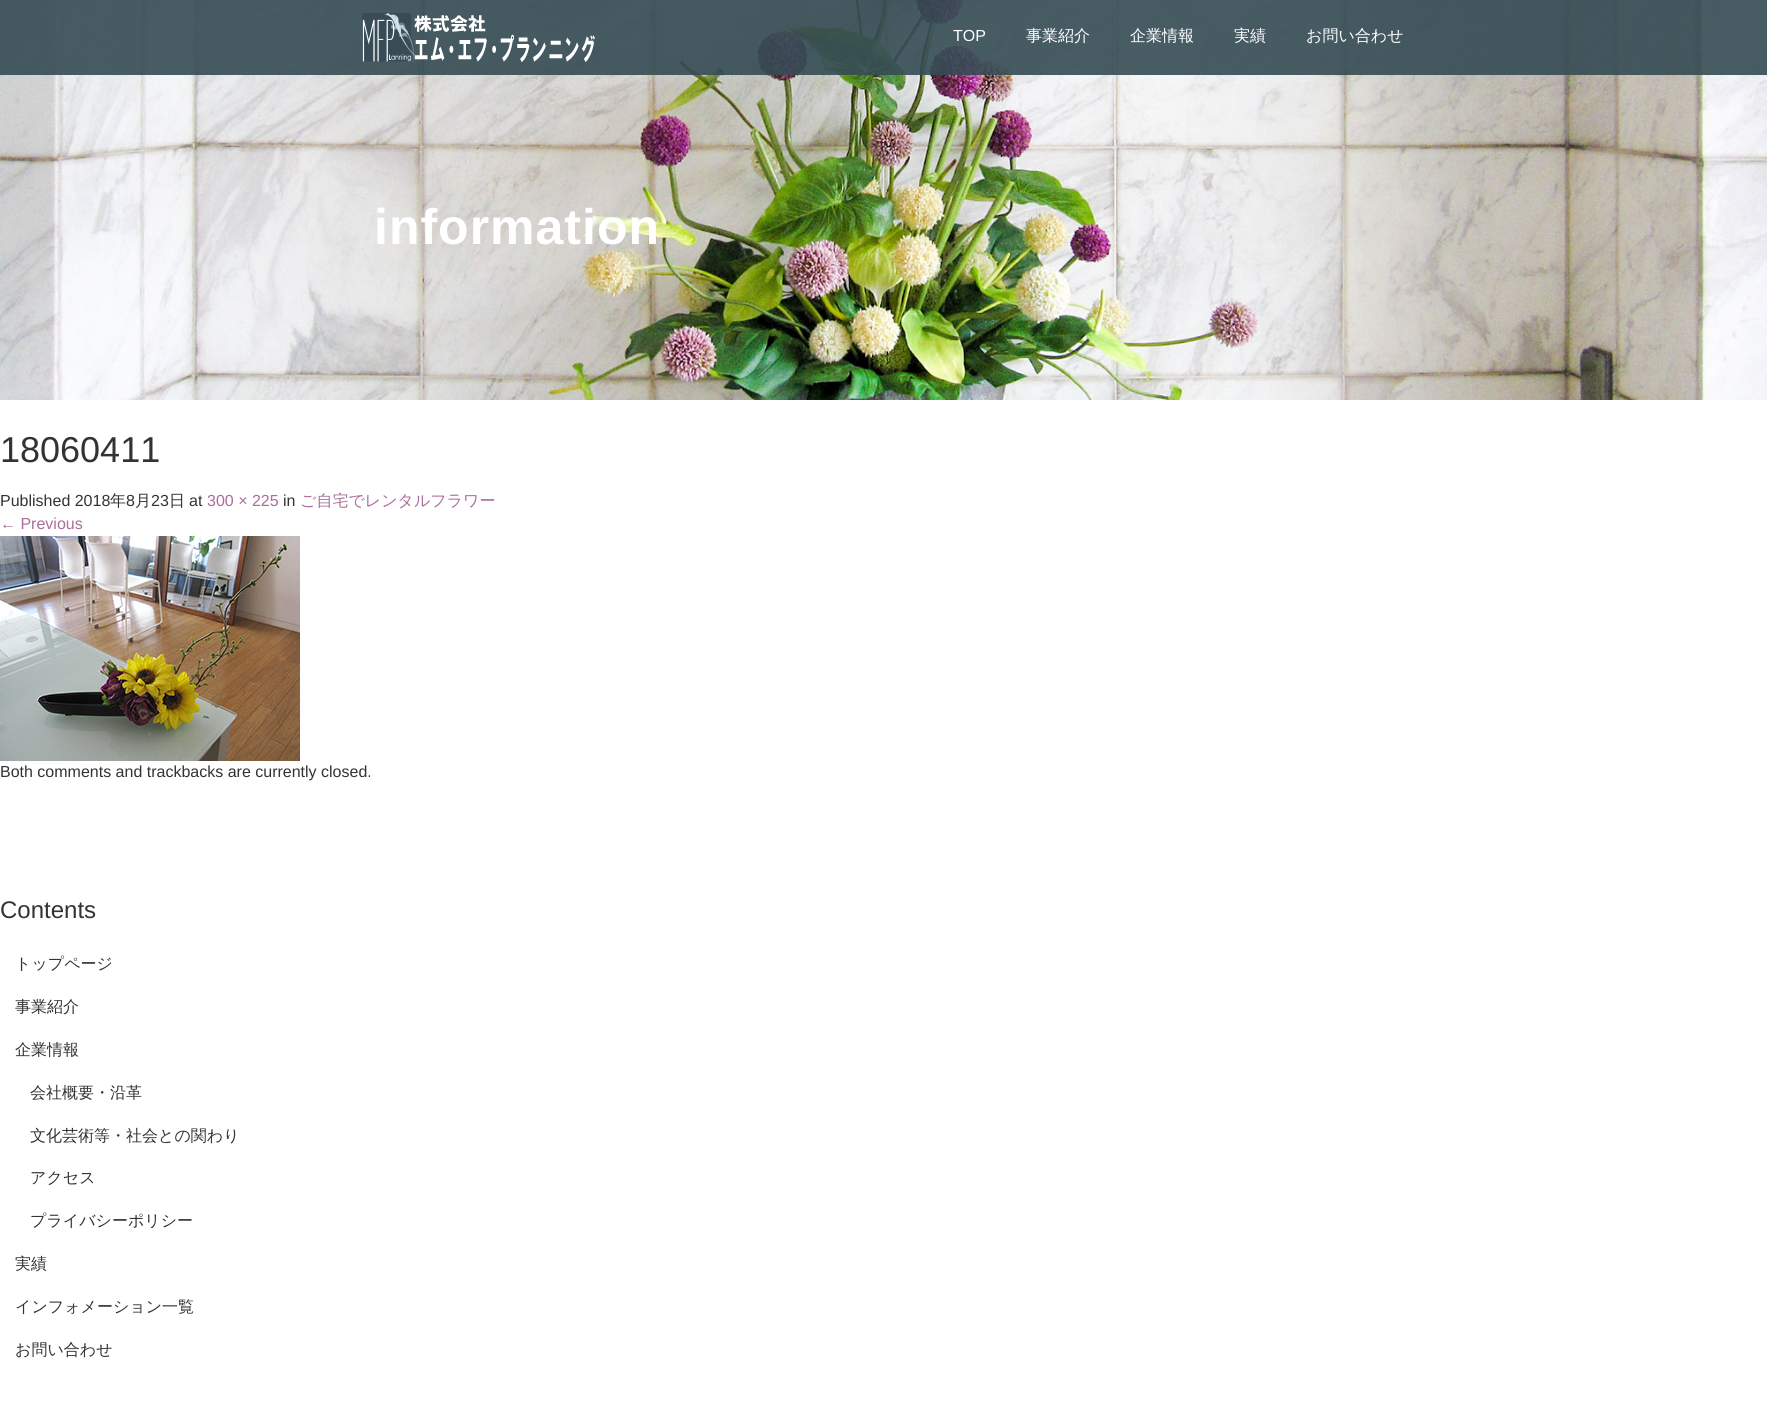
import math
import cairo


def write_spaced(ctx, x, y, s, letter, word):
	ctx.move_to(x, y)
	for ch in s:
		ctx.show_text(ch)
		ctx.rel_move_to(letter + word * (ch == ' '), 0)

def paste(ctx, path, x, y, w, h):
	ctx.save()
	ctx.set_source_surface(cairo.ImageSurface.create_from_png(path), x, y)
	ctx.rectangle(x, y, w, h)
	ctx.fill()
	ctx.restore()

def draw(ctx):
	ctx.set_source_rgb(1, 1, 1)
	ctx.paint()
	paste(ctx, 'media/1.png', 0, 0, 1767, 400)
	ctx.set_source_rgba(0.212, 0.298, 0.333, 0.9)
	ctx.rectangle(0, 0, 1767, 75)
	ctx.fill()
	paste(ctx, 'media/2.png', 362, 13, 233, 49)
	ctx.select_font_face('Liberation Sans')
	ctx.set_font_size(16)
	ctx.set_source_rgb(1, 1, 1)
	ctx.move_to(953, 41)
	ctx.show_text('TOP')
	ctx.select_font_face('WenQuanYi Zen Hei Medium')
	for x, y, s in [
		(1026, 41, '事業紹介'),
		(1130, 41, '企業情報'),
		(1234, 41, '実績'),
		(1306, 41, 'お問い合わせ'),
	]:
		ctx.move_to(x, y)
		ctx.show_text(s)
	ctx.select_font_face('Liberation Sans', cairo.FONT_SLANT_NORMAL, cairo.FONT_WEIGHT_BOLD)
	ctx.set_font_size(50)
	write_spaced(ctx, 374, 244, 'information', 1, 0)
	ctx.select_font_face('Liberation Sans')
	ctx.set_font_size(36)
	ctx.set_source_rgb(0.2, 0.2, 0.2)
	ctx.move_to(0, 462)
	ctx.show_text('18060411')
	ctx.set_font_size(16)
	ctx.move_to(0, 506)
	ctx.show_text('Published 2018')
	ctx.select_font_face('WenQuanYi Zen Hei Medium')
	ctx.move_to(110, 506)
	ctx.show_text('年')
	ctx.select_font_face('Liberation Sans')
	ctx.move_to(126, 506)
	ctx.show_text('8')
	ctx.select_font_face('WenQuanYi Zen Hei Medium')
	ctx.move_to(135, 506)
	ctx.show_text('月')
	ctx.select_font_face('Liberation Sans')
	ctx.move_to(151, 506)
	ctx.show_text('23')
	ctx.select_font_face('WenQuanYi Zen Hei Medium')
	ctx.move_to(169, 506)
	ctx.show_text('日')
	ctx.select_font_face('Liberation Sans')
	ctx.move_to(189, 506)
	ctx.show_text('at')
	ctx.set_source_rgb(0.671, 0.427, 0.604)
	ctx.move_to(207, 506)
	ctx.show_text('300 × 225')
	ctx.set_source_rgb(0.2, 0.2, 0.2)
	ctx.move_to(283, 506)
	ctx.show_text('in')
	ctx.select_font_face('WenQuanYi Zen Hei Medium')
	ctx.set_source_rgb(0.671, 0.427, 0.604)
	ctx.move_to(300, 506)
	ctx.show_text('ご自宅でレンタルフラワー')
	ctx.select_font_face('Liberation Sans')
	ctx.move_to(0, 529)
	ctx.show_text('← Previous')
	paste(ctx, 'media/3.png', 0, 536, 300, 225)
	ctx.set_source_rgb(0.2, 0.2, 0.2)
	ctx.move_to(0, 777)
	ctx.show_text('Both comments and trackbacks are currently closed.')
	ctx.set_font_size(24)
	ctx.move_to(0, 918)
	ctx.show_text('Contents')
	ctx.select_font_face('WenQuanYi Zen Hei Medium')
	ctx.set_font_size(16)
	for x, y, s in [
		(15, 969, 'トップページ'),
		(15, 1012, '事業紹介'),
		(15, 1055, '企業情報'),
		(30, 1098, '会社概要・沿革'),
		(30, 1141, '文化芸術等・社会との関わり'),
		(30, 1183, 'アクセス'),
		(30, 1226, 'プライバシーポリシー'),
		(15, 1269, '実績'),
		(15, 1312, 'インフォメーション一覧'),
		(15, 1355, 'お問い合わせ'),
	]:
		ctx.move_to(x, y)
		ctx.show_text(s)


surface = cairo.ImageSurface(cairo.FORMAT_RGB24, 1767, 1411)
ctx = cairo.Context(surface)
options = cairo.FontOptions()
options.set_hint_metrics(cairo.HINT_METRICS_OFF)
options.set_hint_style(cairo.HINT_STYLE_NONE)
ctx.set_font_options(options)
ctx.set_miter_limit(4)
draw(ctx)
surface.write_to_png('image.png')
